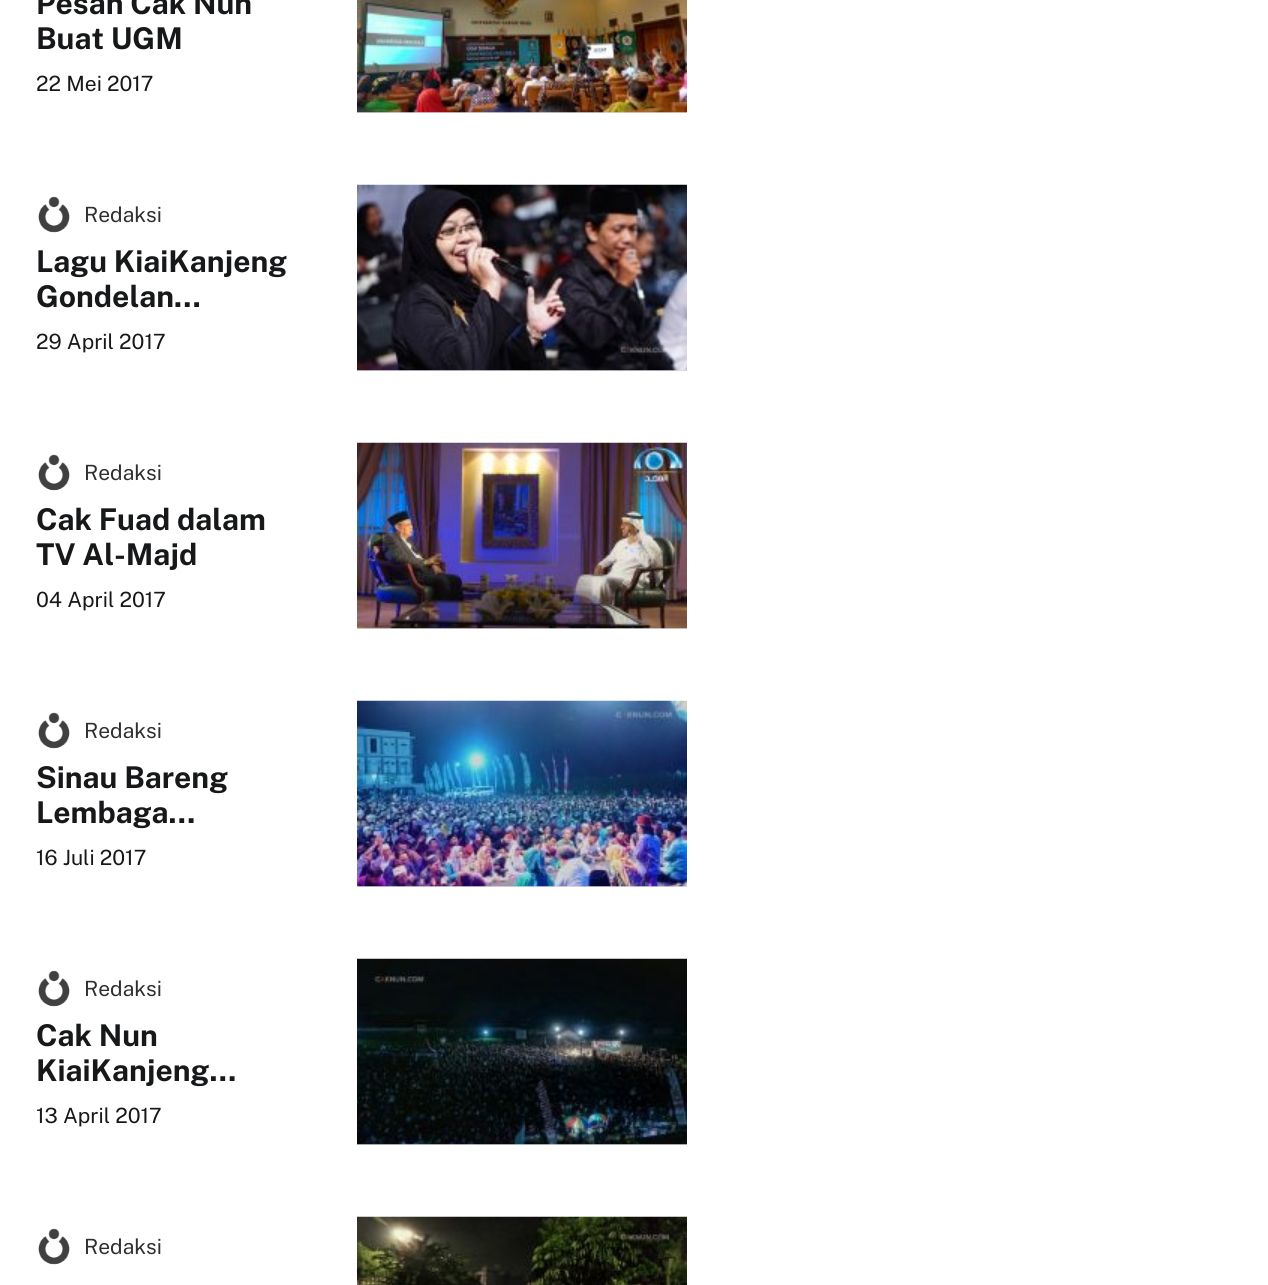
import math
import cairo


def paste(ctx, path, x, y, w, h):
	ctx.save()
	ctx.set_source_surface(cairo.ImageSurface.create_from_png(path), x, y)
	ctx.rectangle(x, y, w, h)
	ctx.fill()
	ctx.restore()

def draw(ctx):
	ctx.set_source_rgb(1, 1, 1)
	ctx.paint()
	ctx.select_font_face('Public Sans', cairo.FONT_SLANT_NORMAL, cairo.FONT_WEIGHT_BOLD)
	ctx.set_font_size(30)
	ctx.set_source_rgb(0.09, 0.094, 0.098)
	ctx.move_to(36, 14)
	ctx.show_text('Pesan Cak Nun')
	ctx.move_to(36, 49)
	ctx.show_text('Buat UGM')
	ctx.select_font_face('Public Sans')
	ctx.set_font_size(21)
	ctx.move_to(36, 91)
	ctx.show_text('22 Mei 2017')
	ctx.set_source_rgb(0.863, 0.863, 0.867)
	ctx.rectangle(357, 112, 330, 1)
	ctx.fill()
	paste(ctx, 'media/1.png', 357, 0, 330, 113)
	paste(ctx, 'media/2.png', 38, 196, 32, 37)
	ctx.set_source_rgb(0.18, 0.184, 0.188)
	ctx.move_to(84, 222)
	ctx.show_text('Redaksi')
	ctx.select_font_face('Public Sans', cairo.FONT_SLANT_NORMAL, cairo.FONT_WEIGHT_BOLD)
	ctx.set_font_size(30)
	ctx.set_source_rgb(0.09, 0.094, 0.098)
	ctx.move_to(36, 272)
	ctx.show_text('Lagu KiaiKanjeng')
	ctx.move_to(36, 307)
	ctx.show_text('Gondelan…')
	ctx.select_font_face('Public Sans')
	ctx.set_font_size(21)
	ctx.move_to(36, 349)
	ctx.show_text('29 April 2017')
	ctx.set_source_rgb(0.863, 0.863, 0.867)
	ctx.rectangle(357, 370, 330, 1)
	ctx.fill()
	paste(ctx, 'media/3.png', 357, 184, 330, 187)
	paste(ctx, 'media/2.png', 38, 454, 32, 37)
	ctx.set_source_rgb(0.18, 0.184, 0.188)
	ctx.move_to(84, 480)
	ctx.show_text('Redaksi')
	ctx.select_font_face('Public Sans', cairo.FONT_SLANT_NORMAL, cairo.FONT_WEIGHT_BOLD)
	ctx.set_font_size(30)
	ctx.set_source_rgb(0.09, 0.094, 0.098)
	ctx.move_to(36, 530)
	ctx.show_text('Cak Fuad dalam')
	ctx.move_to(36, 565)
	ctx.show_text('TV Al-Majd')
	ctx.select_font_face('Public Sans')
	ctx.set_font_size(21)
	ctx.move_to(36, 607)
	ctx.show_text('04 April 2017')
	ctx.set_source_rgb(0.863, 0.863, 0.867)
	ctx.rectangle(357, 628, 330, 1)
	ctx.fill()
	paste(ctx, 'media/4.png', 357, 442, 330, 187)
	paste(ctx, 'media/2.png', 38, 712, 32, 37)
	ctx.set_source_rgb(0.18, 0.184, 0.188)
	ctx.move_to(84, 738)
	ctx.show_text('Redaksi')
	ctx.select_font_face('Public Sans', cairo.FONT_SLANT_NORMAL, cairo.FONT_WEIGHT_BOLD)
	ctx.set_font_size(30)
	ctx.set_source_rgb(0.09, 0.094, 0.098)
	ctx.move_to(36, 788)
	ctx.show_text('Sinau Bareng')
	ctx.move_to(36, 823)
	ctx.show_text('Lembaga…')
	ctx.select_font_face('Public Sans')
	ctx.set_font_size(21)
	ctx.move_to(36, 865)
	ctx.show_text('16 Juli 2017')
	ctx.set_source_rgb(0.863, 0.863, 0.867)
	ctx.rectangle(357, 886, 330, 1)
	ctx.fill()
	paste(ctx, 'media/5.png', 357, 700, 330, 187)
	paste(ctx, 'media/2.png', 38, 970, 32, 37)
	ctx.set_source_rgb(0.18, 0.184, 0.188)
	ctx.move_to(84, 996)
	ctx.show_text('Redaksi')
	ctx.select_font_face('Public Sans', cairo.FONT_SLANT_NORMAL, cairo.FONT_WEIGHT_BOLD)
	ctx.set_font_size(30)
	ctx.set_source_rgb(0.09, 0.094, 0.098)
	ctx.move_to(36, 1046)
	ctx.show_text('Cak Nun')
	ctx.move_to(36, 1081)
	ctx.show_text('KiaiKanjeng…')
	ctx.select_font_face('Public Sans')
	ctx.set_font_size(21)
	ctx.move_to(36, 1123)
	ctx.show_text('13 April 2017')
	ctx.set_source_rgb(0.863, 0.863, 0.867)
	ctx.rectangle(357, 1144, 330, 1)
	ctx.fill()
	paste(ctx, 'media/6.png', 357, 958, 330, 187)
	paste(ctx, 'media/2.png', 38, 1228, 32, 37)
	ctx.set_source_rgb(0.18, 0.184, 0.188)
	ctx.move_to(84, 1254)
	ctx.show_text('Redaksi')
	paste(ctx, 'media/7.png', 357, 1216, 330, 69)


surface = cairo.ImageSurface(cairo.FORMAT_RGB24, 1268, 1285)
ctx = cairo.Context(surface)
options = cairo.FontOptions()
options.set_hint_metrics(cairo.HINT_METRICS_OFF)
options.set_hint_style(cairo.HINT_STYLE_NONE)
ctx.set_font_options(options)
ctx.set_miter_limit(4)
draw(ctx)
surface.write_to_png('image.png')
